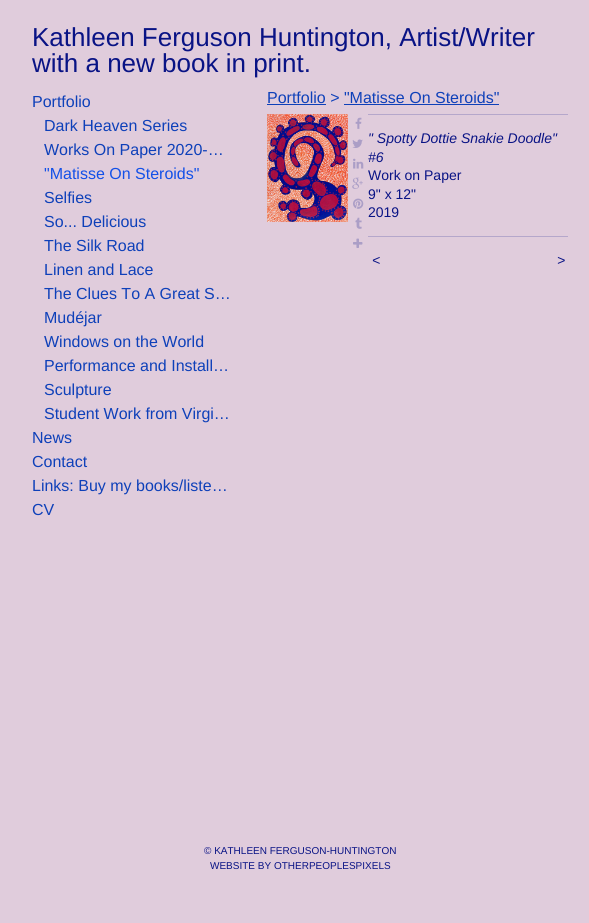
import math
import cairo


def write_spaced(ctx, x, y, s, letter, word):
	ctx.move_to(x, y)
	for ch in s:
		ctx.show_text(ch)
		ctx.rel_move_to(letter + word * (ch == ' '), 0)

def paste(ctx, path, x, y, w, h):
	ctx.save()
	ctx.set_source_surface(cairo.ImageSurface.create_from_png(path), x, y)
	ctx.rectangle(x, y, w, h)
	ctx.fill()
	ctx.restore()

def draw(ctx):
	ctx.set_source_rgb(0.878, 0.8, 0.863)
	ctx.paint()
	ctx.select_font_face('Liberation Sans')
	ctx.set_font_size(26)
	ctx.set_source_rgb(0.039, 0.075, 0.522)
	ctx.move_to(32, 46)
	ctx.show_text('Kathleen Ferguson Huntington, Artist/Writer')
	ctx.move_to(32, 72)
	ctx.show_text('with a new book in print.')
	ctx.set_font_size(16)
	ctx.set_source_rgb(0.055, 0.251, 0.725)
	for x, y, s in [
		(32, 107, 'Portfolio'),
		(44, 131, 'Dark Heaven Series'),
		(44, 155, 'Works On Paper 2020-…'),
	]:
		ctx.move_to(x, y)
		ctx.show_text(s)
	ctx.set_source_rgb(0.071, 0.314, 0.91)
	ctx.move_to(44, 179)
	ctx.show_text('"Matisse On Steroids"')
	ctx.set_source_rgb(0.055, 0.251, 0.725)
	for x, y, s in [
		(44, 203, 'Selfies'),
		(44, 227, 'So... Delicious'),
		(44, 251, 'The Silk Road'),
		(44, 275, 'Linen and Lace'),
		(44, 299, 'The Clues To A Great S…'),
		(44, 323, 'Mudéjar'),
		(44, 347, 'Windows on the World'),
		(44, 371, 'Performance and Install…'),
		(44, 395, 'Sculpture'),
		(44, 419, 'Student Work from Virgi…'),
		(32, 443, 'News'),
		(32, 467, 'Contact'),
		(32, 491, 'Links: Buy my books/liste…'),
		(32, 515, 'CV'),
		(267, 103, 'Portfolio > "Matisse On Steroids"'),
	]:
		ctx.move_to(x, y)
		ctx.show_text(s)
	ctx.rectangle(267, 104, 59, 1)
	ctx.fill()
	ctx.rectangle(344, 104, 155, 1)
	ctx.fill()
	paste(ctx, 'media/1.png', 267, 114, 81, 108)
	paste(ctx, 'media/2.png', 355, 117, 7, 12)
	paste(ctx, 'media/3.png', 352, 139, 11, 9)
	paste(ctx, 'media/4.png', 353, 158, 11, 11)
	paste(ctx, 'media/5.png', 352, 177, 11, 12)
	paste(ctx, 'media/6.png', 353, 198, 11, 11)
	paste(ctx, 'media/7.png', 355, 217, 7, 12)
	paste(ctx, 'media/8.png', 353, 238, 10, 10)
	ctx.set_source_rgb(0.71, 0.655, 0.796)
	ctx.rectangle(368, 114, 200, 1)
	ctx.fill()
	ctx.select_font_face('Liberation Sans', cairo.FONT_SLANT_ITALIC)
	ctx.set_font_size(14)
	ctx.set_source_rgb(0.039, 0.075, 0.522)
	ctx.move_to(368, 143)
	ctx.show_text('" Spotty Dottie Snakie Doodle"')
	ctx.move_to(368, 162)
	ctx.show_text('#6')
	ctx.select_font_face('Liberation Sans')
	for x, y, s in [
		(368, 180, 'Work on Paper'),
		(368, 199, '9" x 12"'),
		(368, 217, '2019'),
	]:
		ctx.move_to(x, y)
		ctx.show_text(s)
	ctx.set_source_rgb(0.71, 0.655, 0.796)
	ctx.rectangle(368, 236, 200, 1)
	ctx.fill()
	ctx.select_font_face('Liberation Sans', cairo.FONT_SLANT_ITALIC)
	ctx.set_source_rgb(0.039, 0.075, 0.522)
	write_spaced(ctx, 372, 265, '<', 1, 0)
	write_spaced(ctx, 557, 265, '>', 1, 0)
	ctx.select_font_face('Liberation Sans')
	ctx.set_font_size(10)
	ctx.move_to(204, 854)
	ctx.show_text('© KATHLEEN FERGUSON-HUNTINGTON')
	ctx.move_to(210, 869)
	ctx.show_text('WEBSITE BY OTHERPEOPLESPIXELS')


surface = cairo.ImageSurface(cairo.FORMAT_RGB24, 589, 923)
ctx = cairo.Context(surface)
options = cairo.FontOptions()
options.set_hint_metrics(cairo.HINT_METRICS_OFF)
options.set_hint_style(cairo.HINT_STYLE_NONE)
ctx.set_font_options(options)
ctx.set_miter_limit(4)
draw(ctx)
surface.write_to_png('image.png')
